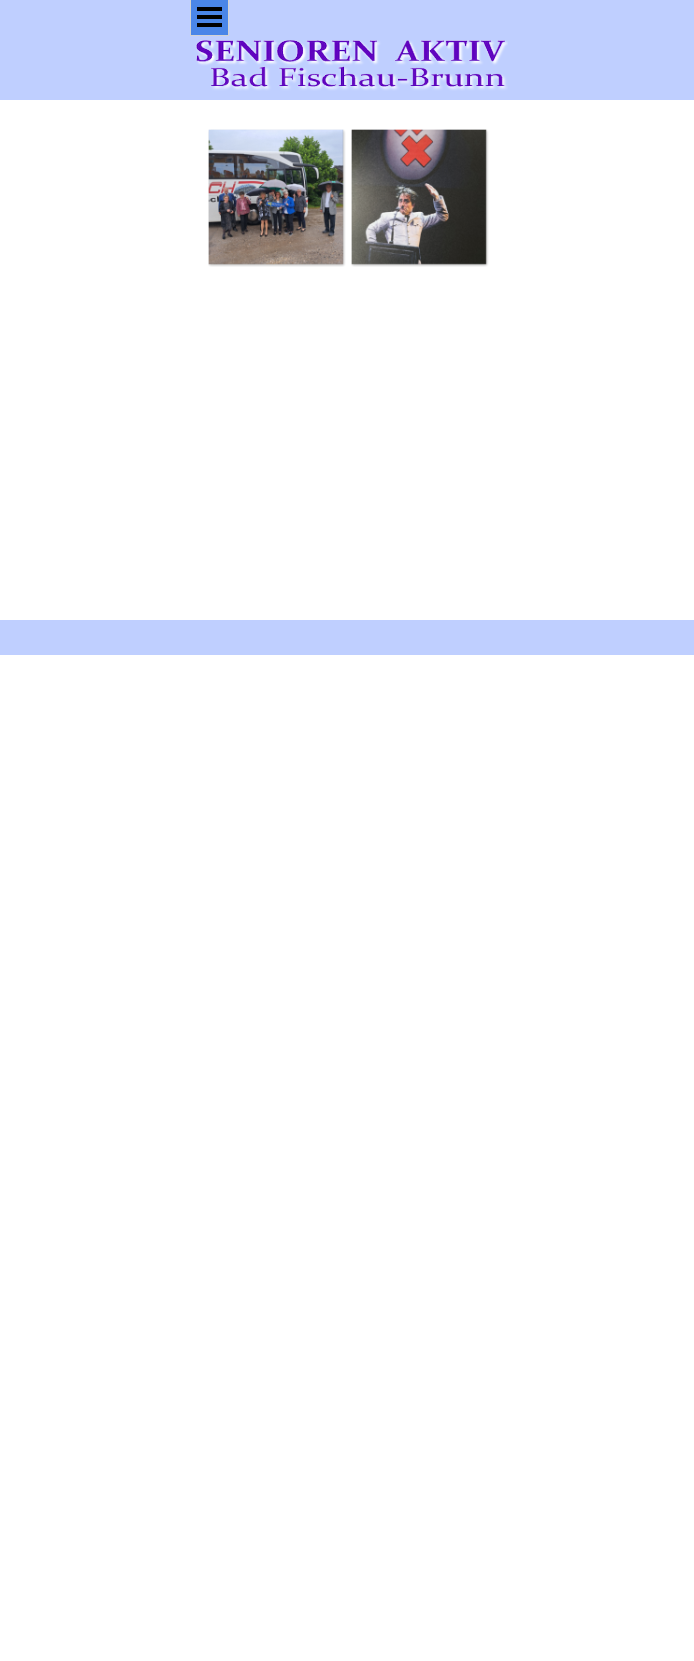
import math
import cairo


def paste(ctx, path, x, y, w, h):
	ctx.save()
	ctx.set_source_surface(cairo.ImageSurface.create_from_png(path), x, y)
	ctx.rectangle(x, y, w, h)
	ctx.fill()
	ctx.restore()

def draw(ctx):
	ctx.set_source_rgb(1, 1, 1)
	ctx.paint()
	ctx.set_source_rgb(0.749, 0.812, 1)
	ctx.rectangle(0, 0, 694, 100)
	ctx.fill()
	ctx.set_source_rgb(0.29, 0.525, 0.91)
	ctx.rectangle(190.5, -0.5, 38, 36)
	ctx.fill_preserve()
	ctx.set_source_rgb(0.827, 0.827, 0.827)
	ctx.set_line_width(1)
	ctx.stroke()
	ctx.set_source_rgb(0, 0, 0)
	ctx.rectangle(197, 7, 25, 4)
	ctx.rectangle(197, 15, 25, 4)
	ctx.rectangle(197, 23, 25, 4)
	ctx.fill()
	paste(ctx, 'media/1.png', 195, 40, 313, 26)
	paste(ctx, 'media/2.png', 210, 66, 298, 25)
	paste(ctx, 'media/3.png', 208, 129, 138, 138)
	paste(ctx, 'media/4.png', 351, 129, 138, 138)
	ctx.set_source_rgb(0.749, 0.812, 1)
	ctx.rectangle(0, 620, 694, 35)
	ctx.fill()


surface = cairo.ImageSurface(cairo.FORMAT_RGB24, 694, 1661)
ctx = cairo.Context(surface)
options = cairo.FontOptions()
options.set_hint_metrics(cairo.HINT_METRICS_OFF)
options.set_hint_style(cairo.HINT_STYLE_NONE)
ctx.set_font_options(options)
ctx.set_miter_limit(4)
draw(ctx)
surface.write_to_png('image.png')
